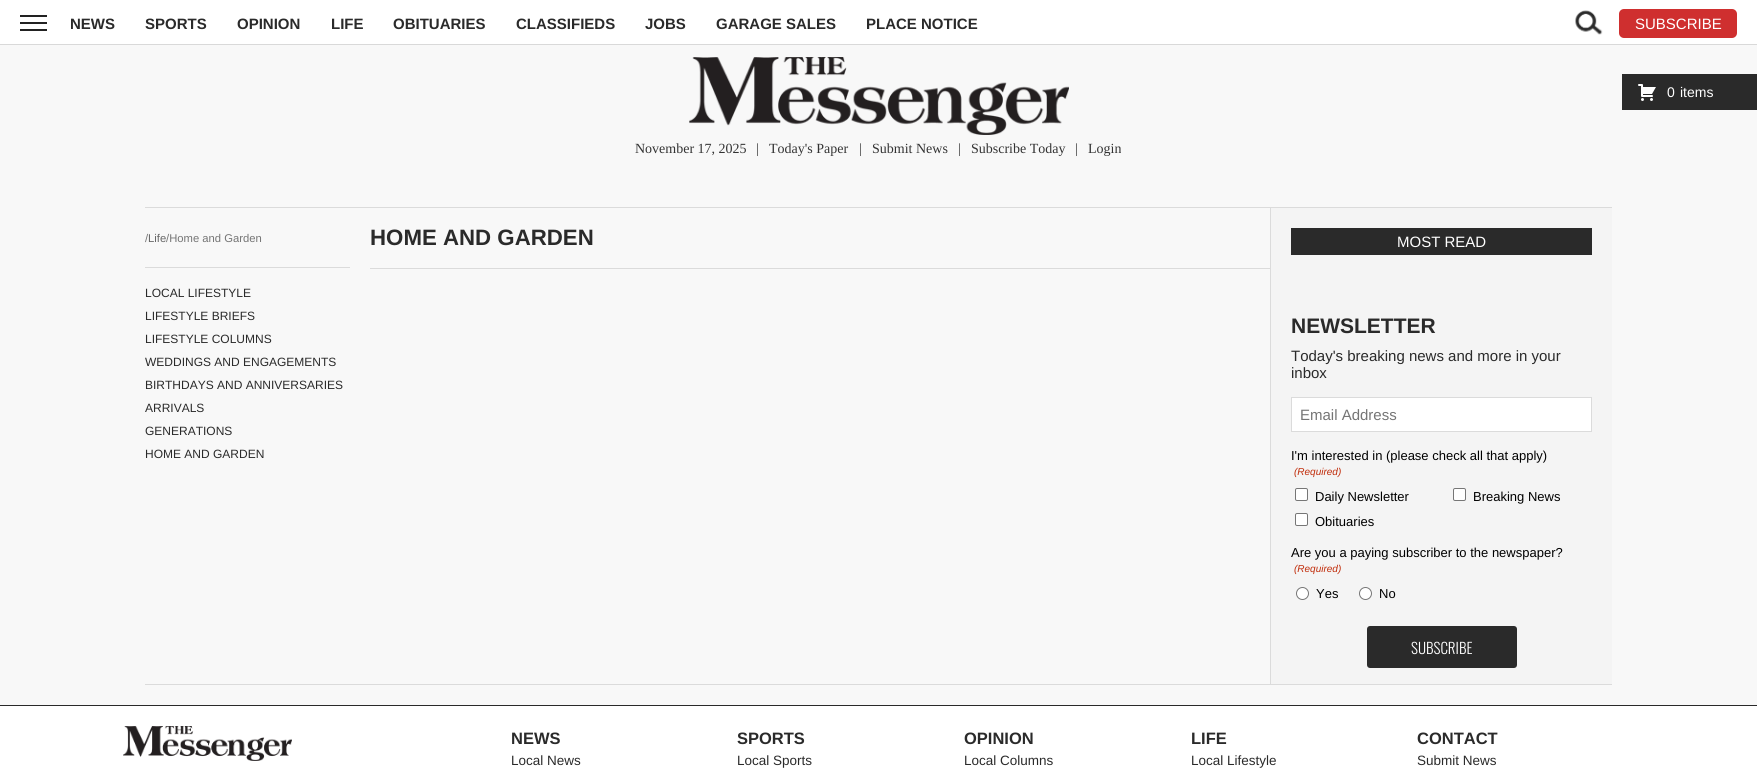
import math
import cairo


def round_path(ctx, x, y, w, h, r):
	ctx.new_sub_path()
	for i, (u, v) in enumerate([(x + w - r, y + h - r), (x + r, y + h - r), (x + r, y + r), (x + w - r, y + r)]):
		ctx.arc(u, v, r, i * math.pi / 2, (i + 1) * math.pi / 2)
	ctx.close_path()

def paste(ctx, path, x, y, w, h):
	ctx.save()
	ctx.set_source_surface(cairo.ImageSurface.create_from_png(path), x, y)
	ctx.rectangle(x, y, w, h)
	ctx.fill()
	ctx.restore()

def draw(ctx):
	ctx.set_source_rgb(0.969, 0.969, 0.969)
	ctx.paint()
	ctx.set_source_rgb(1, 1, 1)
	ctx.rectangle(0, 0, 1757, 44)
	ctx.fill()
	ctx.set_source_rgb(0.851, 0.851, 0.851)
	ctx.rectangle(0, 44, 1757, 1)
	ctx.fill()
	ctx.set_source_rgb(0.133, 0.133, 0.133)
	ctx.rectangle(20, 15, 27, 2)
	ctx.rectangle(20, 22, 27, 2)
	ctx.rectangle(20, 29, 27, 2)
	ctx.fill()
	ctx.select_font_face('Liberation Sans', cairo.FONT_SLANT_NORMAL, cairo.FONT_WEIGHT_BOLD)
	ctx.set_font_size(15)
	ctx.set_source_rgb(0.165, 0.165, 0.165)
	for x, y, s in [
		(70, 29, 'NEWS'),
		(145, 29, 'SPORTS'),
		(237, 29, 'OPINION'),
		(331, 29, 'LIFE'),
		(393, 29, 'OBITUARIES'),
		(516, 29, 'CLASSIFIEDS'),
		(645, 29, 'JOBS'),
		(716, 29, 'GARAGE SALES'),
		(866, 29, 'PLACE NOTICE'),
	]:
		ctx.move_to(x, y)
		ctx.show_text(s)
	paste(ctx, 'media/1.png', 1575, 10, 28, 25)
	ctx.set_source_rgb(0.812, 0.184, 0.184)
	round_path(ctx, 1619, 9, 118, 29, 5)
	ctx.fill()
	ctx.select_font_face('Liberation Sans')
	ctx.set_source_rgb(1, 1, 1)
	ctx.move_to(1635, 29)
	ctx.show_text('SUBSCRIBE')
	paste(ctx, 'media/2.png', 689, 57, 380, 78)
	ctx.set_source_rgb(0.165, 0.165, 0.165)
	ctx.rectangle(1622, 74, 135, 36)
	ctx.fill()
	paste(ctx, 'media/3.png', 1638, 84, 18, 17)
	ctx.set_font_size(14)
	ctx.set_source_rgb(1, 1, 1)
	ctx.move_to(1667, 97)
	ctx.show_text('0')
	ctx.move_to(1680, 97)
	ctx.show_text('items')
	ctx.select_font_face('Liberation Serif')
	ctx.set_source_rgb(0.2, 0.2, 0.2)
	for x, y, s in [
		(635, 153, 'November 17, 2025'),
		(756, 153, '|'),
		(769, 153, 'Today\'s Paper'),
		(859, 153, '|'),
		(872, 153, 'Submit News'),
		(958, 153, '|'),
		(971, 153, 'Subscribe Today'),
		(1075, 153, '|'),
		(1088, 153, 'Login'),
	]:
		ctx.move_to(x, y)
		ctx.show_text(s)
	ctx.set_source_rgb(0.957, 0.957, 0.957)
	ctx.rectangle(1271, 208, 341, 476)
	ctx.fill()
	ctx.set_source_rgb(0.859, 0.859, 0.859)
	ctx.rectangle(145, 207, 1467, 1)
	ctx.rectangle(145, 684, 1467, 1)
	ctx.rectangle(1270, 208, 1, 476)
	ctx.rectangle(145, 267, 205, 1)
	ctx.fill()
	ctx.select_font_face('Liberation Sans')
	ctx.set_font_size(11.25)
	ctx.set_source_rgb(0.459, 0.459, 0.459)
	ctx.move_to(145, 242)
	ctx.show_text('/')
	ctx.set_source_rgb(0.4, 0.4, 0.4)
	ctx.move_to(148, 242)
	ctx.show_text('Life')
	ctx.set_source_rgb(0.459, 0.459, 0.459)
	ctx.move_to(166, 242)
	ctx.show_text('/Home and Garden')
	ctx.set_font_size(12)
	ctx.set_source_rgb(0.165, 0.165, 0.165)
	for x, y, s in [
		(145, 297, 'LOCAL LIFESTYLE'),
		(145, 320, 'LIFESTYLE BRIEFS'),
		(145, 343, 'LIFESTYLE COLUMNS'),
		(145, 366, 'WEDDINGS AND ENGAGEMENTS'),
		(145, 389, 'BIRTHDAYS AND ANNIVERSARIES'),
		(145, 412, 'ARRIVALS'),
		(145, 435, 'GENERATIONS'),
		(145, 458, 'HOME AND GARDEN'),
	]:
		ctx.move_to(x, y)
		ctx.show_text(s)
	ctx.set_source_rgb(0.859, 0.859, 0.859)
	ctx.rectangle(370, 268, 900, 1)
	ctx.fill()
	ctx.select_font_face('Liberation Sans', cairo.FONT_SLANT_NORMAL, cairo.FONT_WEIGHT_BOLD)
	ctx.set_font_size(22.25)
	ctx.set_source_rgb(0.165, 0.165, 0.165)
	ctx.move_to(370, 245)
	ctx.show_text('HOME AND GARDEN')
	ctx.rectangle(1291, 228, 301, 27)
	ctx.fill()
	ctx.select_font_face('Liberation Sans')
	ctx.set_font_size(15)
	ctx.set_source_rgb(1, 1, 1)
	ctx.move_to(1397, 247)
	ctx.show_text('MOST READ')
	ctx.select_font_face('Liberation Sans', cairo.FONT_SLANT_NORMAL, cairo.FONT_WEIGHT_BOLD)
	ctx.set_font_size(21)
	ctx.set_source_rgb(0.165, 0.165, 0.165)
	ctx.move_to(1291, 333)
	ctx.show_text('NEWSLETTER')
	ctx.select_font_face('Liberation Sans')
	ctx.set_font_size(15)
	ctx.move_to(1291, 361)
	ctx.show_text('Today\'s breaking news and more in your')
	ctx.move_to(1291, 378)
	ctx.show_text('inbox')
	ctx.set_source_rgb(1, 1, 1)
	ctx.rectangle(1291.5, 397.5, 300, 34)
	ctx.fill_preserve()
	ctx.set_source_rgb(0.859, 0.859, 0.859)
	ctx.set_line_width(1)
	ctx.stroke()
	ctx.set_source_rgb(0.459, 0.459, 0.459)
	ctx.move_to(1300, 420)
	ctx.show_text('Email Address')
	ctx.set_font_size(13)
	ctx.set_source_rgb(0, 0, 0)
	ctx.move_to(1291, 460)
	ctx.show_text('I\'m interested in (please check all that apply)')
	ctx.select_font_face('Liberation Sans', cairo.FONT_SLANT_ITALIC)
	ctx.set_font_size(10)
	ctx.set_source_rgb(0.753, 0.169, 0.039)
	ctx.move_to(1294, 475)
	ctx.show_text('(Required)')
	ctx.set_source_rgb(1, 1, 1)
	round_path(ctx, 1295.5, 488.5, 12, 12, 1.5)
	ctx.fill_preserve()
	ctx.set_source_rgb(0.463, 0.463, 0.463)
	ctx.stroke()
	ctx.select_font_face('Liberation Sans')
	ctx.set_font_size(13)
	ctx.set_source_rgb(0, 0, 0)
	ctx.move_to(1315, 501)
	ctx.show_text('Daily Newsletter')
	ctx.set_source_rgb(1, 1, 1)
	round_path(ctx, 1453.5, 488.5, 12, 12, 1.5)
	ctx.fill_preserve()
	ctx.set_source_rgb(0.463, 0.463, 0.463)
	ctx.stroke()
	ctx.set_source_rgb(0, 0, 0)
	ctx.move_to(1473, 501)
	ctx.show_text('Breaking News')
	ctx.set_source_rgb(1, 1, 1)
	round_path(ctx, 1295.5, 513.5, 12, 12, 1.5)
	ctx.fill_preserve()
	ctx.set_source_rgb(0.463, 0.463, 0.463)
	ctx.stroke()
	ctx.set_source_rgb(0, 0, 0)
	ctx.move_to(1315, 526)
	ctx.show_text('Obituaries')
	ctx.move_to(1291, 557)
	ctx.show_text('Are you a paying subscriber to the newspaper?')
	ctx.select_font_face('Liberation Sans', cairo.FONT_SLANT_ITALIC)
	ctx.set_font_size(10)
	ctx.set_source_rgb(0.753, 0.169, 0.039)
	ctx.move_to(1294, 572)
	ctx.show_text('(Required)')
	ctx.set_source_rgb(1, 1, 1)
	ctx.new_path()
	ctx.arc(1302.5, 593.5, 6, 0, 2 * math.pi)
	ctx.fill_preserve()
	ctx.set_source_rgb(0.463, 0.463, 0.463)
	ctx.stroke()
	ctx.select_font_face('Liberation Sans')
	ctx.set_font_size(13)
	ctx.set_source_rgb(0, 0, 0)
	ctx.move_to(1316, 598)
	ctx.show_text('Yes')
	ctx.set_source_rgb(1, 1, 1)
	ctx.new_path()
	ctx.arc(1365.5, 593.5, 6, 0, 2 * math.pi)
	ctx.fill_preserve()
	ctx.set_source_rgb(0.463, 0.463, 0.463)
	ctx.stroke()
	ctx.set_source_rgb(0, 0, 0)
	ctx.move_to(1379, 598)
	ctx.show_text('No')
	ctx.set_source_rgb(0.165, 0.165, 0.165)
	round_path(ctx, 1367, 626, 150, 42, 3)
	ctx.fill()
	ctx.select_font_face('Oswald Light')
	ctx.set_font_size(15)
	ctx.set_source_rgb(1, 1, 1)
	ctx.move_to(1411, 654)
	ctx.show_text('SUBSCRIBE')
	ctx.rectangle(0, 706, 1757, 68)
	ctx.fill()
	ctx.set_source_rgb(0.165, 0.165, 0.165)
	ctx.rectangle(0, 705, 1757, 1)
	ctx.fill()
	paste(ctx, 'media/4.png', 123, 726, 169, 35)
	ctx.select_font_face('Liberation Sans', cairo.FONT_SLANT_NORMAL, cairo.FONT_WEIGHT_BOLD)
	ctx.set_font_size(16.5)
	ctx.move_to(511, 744)
	ctx.show_text('NEWS')
	ctx.select_font_face('Liberation Sans')
	ctx.set_font_size(13.5)
	ctx.move_to(511, 765)
	ctx.show_text('Local News')
	ctx.select_font_face('Liberation Sans', cairo.FONT_SLANT_NORMAL, cairo.FONT_WEIGHT_BOLD)
	ctx.set_font_size(16.5)
	ctx.move_to(737, 744)
	ctx.show_text('SPORTS')
	ctx.select_font_face('Liberation Sans')
	ctx.set_font_size(13.5)
	ctx.move_to(737, 765)
	ctx.show_text('Local Sports')
	ctx.select_font_face('Liberation Sans', cairo.FONT_SLANT_NORMAL, cairo.FONT_WEIGHT_BOLD)
	ctx.set_font_size(16.5)
	ctx.move_to(964, 744)
	ctx.show_text('OPINION')
	ctx.select_font_face('Liberation Sans')
	ctx.set_font_size(13.5)
	ctx.move_to(964, 765)
	ctx.show_text('Local Columns')
	ctx.select_font_face('Liberation Sans', cairo.FONT_SLANT_NORMAL, cairo.FONT_WEIGHT_BOLD)
	ctx.set_font_size(16.5)
	ctx.move_to(1191, 744)
	ctx.show_text('LIFE')
	ctx.select_font_face('Liberation Sans')
	ctx.set_font_size(13.5)
	ctx.move_to(1191, 765)
	ctx.show_text('Local Lifestyle')
	ctx.select_font_face('Liberation Sans', cairo.FONT_SLANT_NORMAL, cairo.FONT_WEIGHT_BOLD)
	ctx.set_font_size(16.5)
	ctx.move_to(1417, 744)
	ctx.show_text('CONTACT')
	ctx.select_font_face('Liberation Sans')
	ctx.set_font_size(13.5)
	ctx.move_to(1417, 765)
	ctx.show_text('Submit News')


surface = cairo.ImageSurface(cairo.FORMAT_RGB24, 1757, 774)
ctx = cairo.Context(surface)
options = cairo.FontOptions()
options.set_hint_metrics(cairo.HINT_METRICS_OFF)
options.set_hint_style(cairo.HINT_STYLE_NONE)
ctx.set_font_options(options)
ctx.set_miter_limit(4)
draw(ctx)
surface.write_to_png('image.png')
